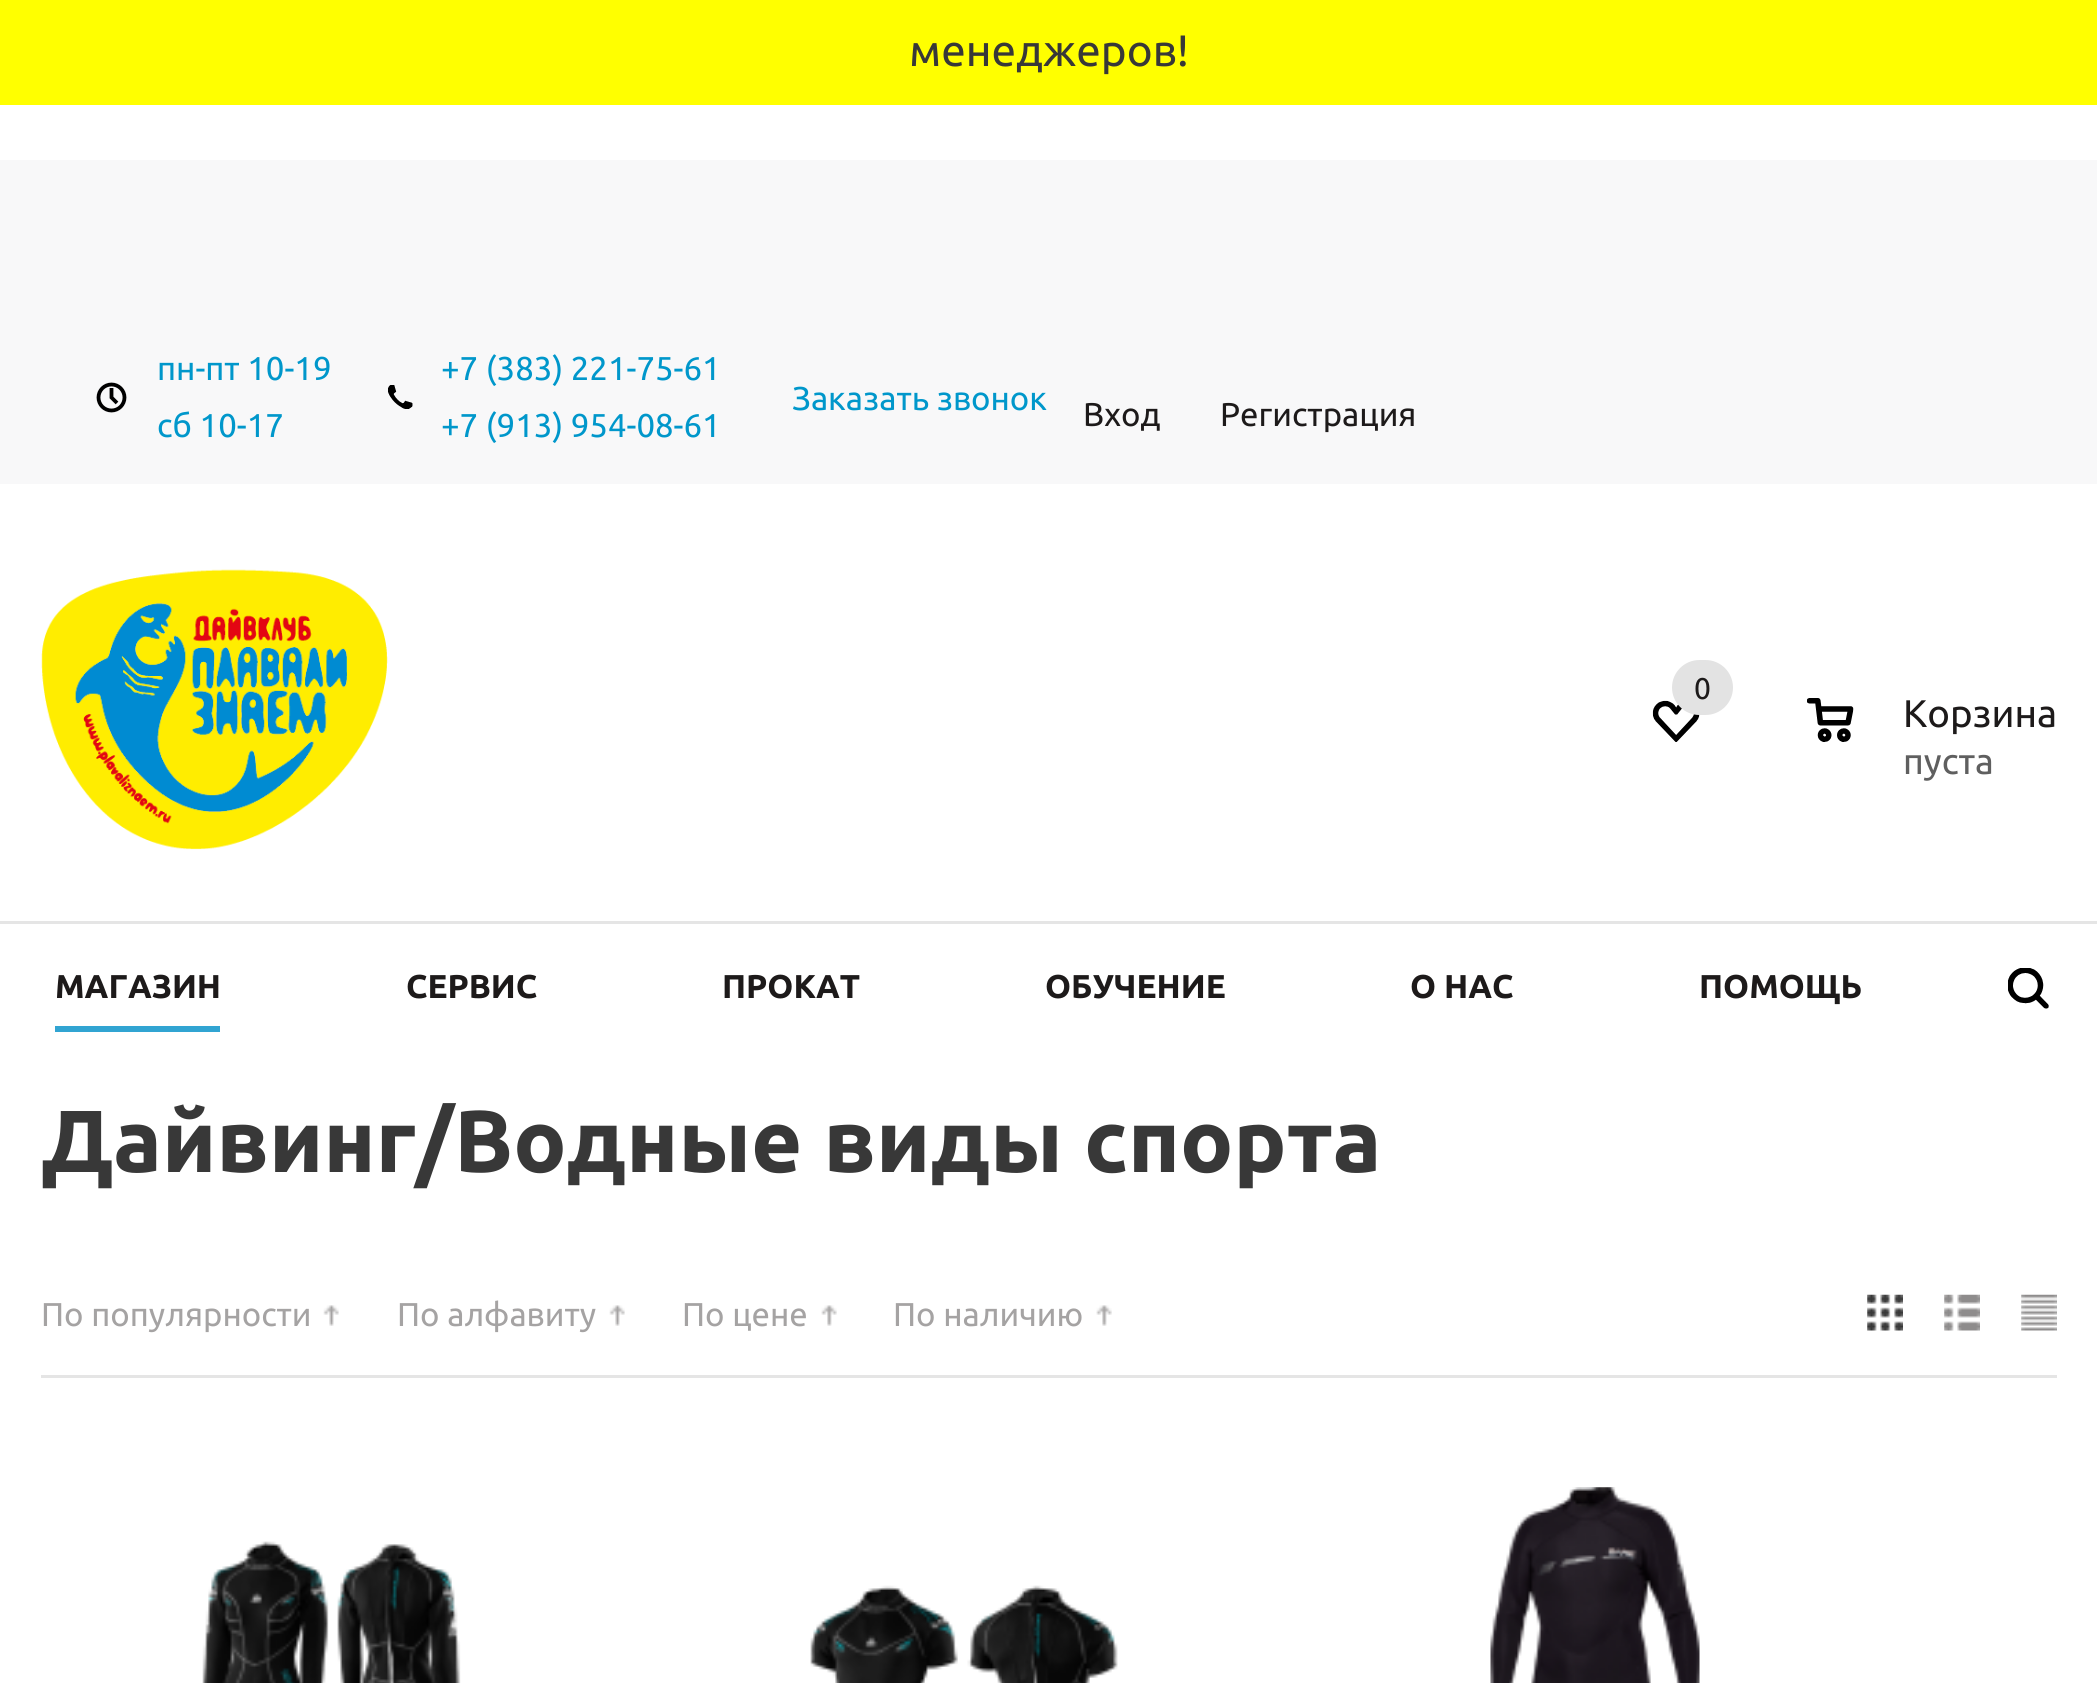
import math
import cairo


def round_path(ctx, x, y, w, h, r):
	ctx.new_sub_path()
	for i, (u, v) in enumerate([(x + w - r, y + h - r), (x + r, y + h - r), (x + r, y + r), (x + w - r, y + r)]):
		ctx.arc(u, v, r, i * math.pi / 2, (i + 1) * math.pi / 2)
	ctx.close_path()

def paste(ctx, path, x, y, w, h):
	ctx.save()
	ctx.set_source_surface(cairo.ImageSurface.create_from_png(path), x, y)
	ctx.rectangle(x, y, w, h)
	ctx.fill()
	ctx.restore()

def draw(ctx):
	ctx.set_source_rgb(1, 1, 1)
	ctx.paint()
	ctx.set_source_rgb(1, 1, 0)
	ctx.rectangle(0, 0, 2097, 105)
	ctx.fill()
	ctx.select_font_face('Ubuntu')
	ctx.set_font_size(44)
	ctx.set_source_rgb(0.22, 0.22, 0.22)
	ctx.move_to(909, 66)
	ctx.show_text('менеджеров!')
	ctx.set_source_rgb(0.969, 0.969, 0.976)
	ctx.rectangle(0, 160, 2097, 324)
	ctx.fill()
	ctx.arc(111.5, 397.5, 13, 0, 2 * math.pi)
	ctx.set_source_rgb(0, 0, 0)
	ctx.set_line_width(3.8)
	ctx.stroke()
	ctx.new_path()
	ctx.move_to(111.5, 388)
	ctx.line_to(111.5, 397.5)
	ctx.line_to(117, 403)
	ctx.stroke()
	ctx.set_font_size(33)
	ctx.set_source_rgb(0, 0.592, 0.796)
	ctx.move_to(157, 380)
	ctx.show_text('пн-пт 10-19')
	ctx.move_to(157, 437)
	ctx.show_text('сб 10-17')
	paste(ctx, 'media/1.png', 388, 385, 25, 24)
	for x, y, s in [
		(441, 380, '+7 (383) 221-75-61'),
		(441, 437, '+7 (913) 954-08-61'),
		(792, 410, 'Заказать звонок'),
	]:
		ctx.move_to(x, y)
		ctx.show_text(s)
	ctx.set_source_rgb(0.114, 0.102, 0.102)
	ctx.move_to(1083, 426)
	ctx.show_text('Вход')
	ctx.move_to(1220, 426)
	ctx.show_text('Регистрация')
	ctx.set_source_rgb(0.898, 0.898, 0.898)
	ctx.rectangle(0, 921, 2097, 3)
	ctx.fill()
	paste(ctx, 'media/2.png', 41, 569, 347, 281)
	paste(ctx, 'media/3.png', 1652, 700, 48, 42)
	ctx.set_source_rgb(0.89, 0.89, 0.89)
	round_path(ctx, 1672, 660, 61, 55, 27.5)
	ctx.fill()
	ctx.set_font_size(30)
	ctx.set_source_rgb(0.114, 0.102, 0.102)
	ctx.move_to(1694, 699)
	ctx.show_text('0')
	paste(ctx, 'media/4.png', 1807, 698, 47, 44)
	ctx.set_font_size(38.5)
	ctx.move_to(1903, 727)
	ctx.show_text('Корзина')
	ctx.set_font_size(36)
	ctx.set_source_rgb(0.373, 0.373, 0.373)
	ctx.move_to(1903, 774)
	ctx.show_text('пуста')
	ctx.set_source_rgb(0.192, 0.643, 0.824)
	ctx.rectangle(55, 1026, 165, 6)
	ctx.fill()
	ctx.select_font_face('Ubuntu', cairo.FONT_SLANT_NORMAL, cairo.FONT_WEIGHT_BOLD)
	ctx.set_font_size(33)
	ctx.set_source_rgb(0.114, 0.102, 0.102)
	for x, y, s in [
		(55, 998, 'МАГАЗИН'),
		(406, 998, 'СЕРВИС'),
		(722, 998, 'ПРОКАТ'),
		(1045, 998, 'ОБУЧЕНИЕ'),
		(1410, 998, 'О НАС'),
		(1699, 998, 'ПОМОЩЬ'),
	]:
		ctx.move_to(x, y)
		ctx.show_text(s)
	paste(ctx, 'media/5.png', 2008, 968, 41, 41)
	ctx.set_font_size(88)
	ctx.set_source_rgb(0.22, 0.22, 0.22)
	ctx.move_to(41, 1172)
	ctx.show_text('Дайвинг/Водные виды спорта')
	ctx.set_source_rgb(0.898, 0.898, 0.898)
	ctx.rectangle(41, 1375, 2016, 3)
	ctx.fill()
	ctx.select_font_face('Ubuntu')
	ctx.set_font_size(33)
	ctx.set_source_rgb(0.647, 0.639, 0.639)
	ctx.move_to(41, 1326)
	ctx.show_text('По популярности')
	paste(ctx, 'media/6.png', 323, 1305, 16, 21)
	ctx.move_to(397, 1326)
	ctx.show_text('По алфавиту')
	paste(ctx, 'media/6.png', 609, 1305, 16, 21)
	ctx.move_to(682, 1326)
	ctx.show_text('По цене')
	paste(ctx, 'media/7.png', 821, 1305, 16, 21)
	ctx.move_to(893, 1326)
	ctx.show_text('По наличию')
	paste(ctx, 'media/7.png', 1096, 1305, 16, 21)
	paste(ctx, 'media/8.png', 1867, 1294, 36, 37)
	paste(ctx, 'media/9.png', 1944, 1294, 36, 37)
	paste(ctx, 'media/10.png', 2021, 1294, 36, 37)
	paste(ctx, 'media/11.png', 202, 1541, 259, 142)
	paste(ctx, 'media/12.png', 810, 1585, 308, 98)
	paste(ctx, 'media/13.png', 1490, 1487, 210, 196)


surface = cairo.ImageSurface(cairo.FORMAT_RGB24, 2097, 1683)
ctx = cairo.Context(surface)
options = cairo.FontOptions()
options.set_hint_metrics(cairo.HINT_METRICS_OFF)
options.set_hint_style(cairo.HINT_STYLE_NONE)
ctx.set_font_options(options)
ctx.set_miter_limit(4)
draw(ctx)
surface.write_to_png('image.png')
